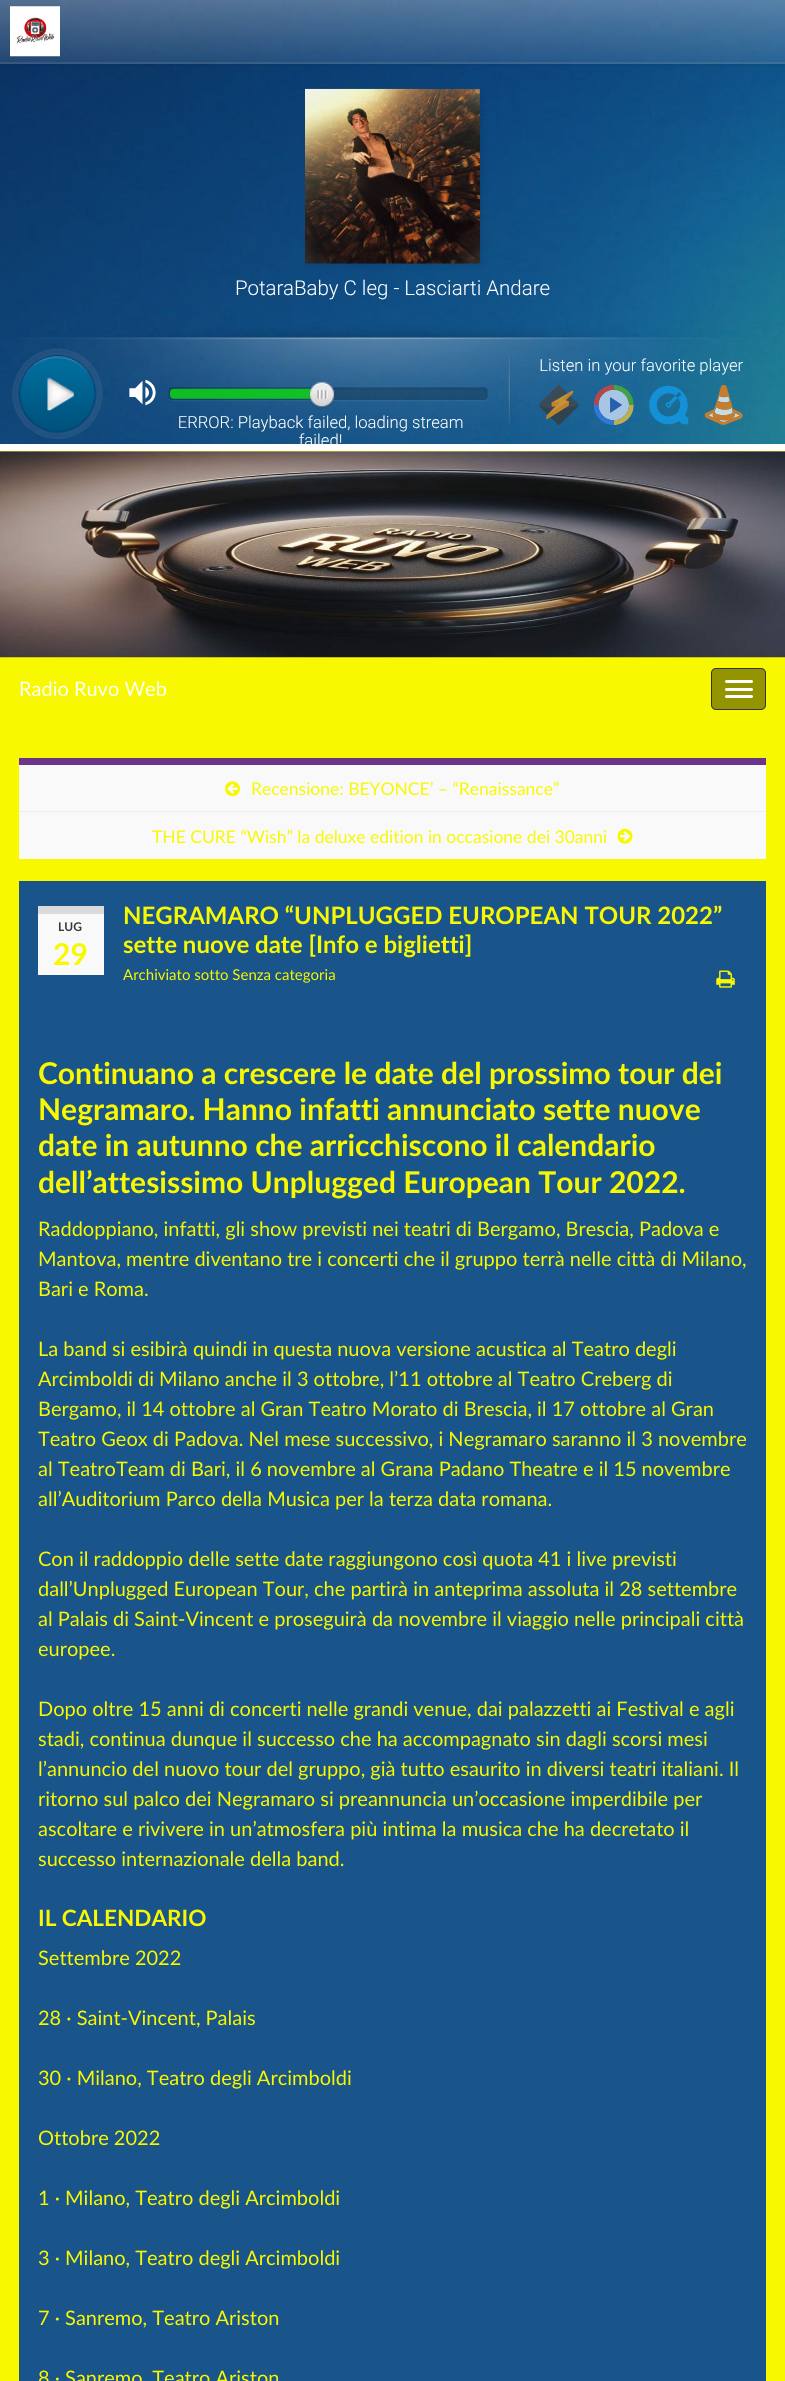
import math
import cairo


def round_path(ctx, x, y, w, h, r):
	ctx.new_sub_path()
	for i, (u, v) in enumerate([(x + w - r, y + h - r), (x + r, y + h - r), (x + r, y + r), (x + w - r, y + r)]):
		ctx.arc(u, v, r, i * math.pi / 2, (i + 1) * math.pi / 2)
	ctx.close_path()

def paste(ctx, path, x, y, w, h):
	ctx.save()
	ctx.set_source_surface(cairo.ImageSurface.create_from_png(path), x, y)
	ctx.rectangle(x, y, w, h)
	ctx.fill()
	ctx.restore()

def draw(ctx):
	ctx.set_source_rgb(1, 1, 1)
	ctx.paint()
	paste(ctx, 'media/1.png', 0, 0, 785, 444)
	ctx.set_source_rgb(0.969, 0.969, 0)
	ctx.rectangle(0, 451, 785, 269)
	ctx.fill()
	paste(ctx, 'media/2.png', 0, 451, 785, 207)
	ctx.select_font_face('Lato')
	ctx.set_font_size(20)
	ctx.set_source_rgb(1, 1, 1)
	ctx.move_to(19, 696)
	ctx.show_text('Radio Ruvo Web')
	ctx.set_source_rgb(0.58, 0.58, 0)
	round_path(ctx, 711.5, 668.5, 54, 41, 4.5)
	ctx.fill_preserve()
	ctx.set_source_rgb(0.2, 0.2, 0.2)
	ctx.set_line_width(1)
	ctx.stroke()
	ctx.set_source_rgb(1, 1, 1)
	round_path(ctx, 725, 680, 28, 3, 1.5)
	ctx.fill()
	round_path(ctx, 725, 688, 28, 3, 1.5)
	ctx.fill()
	round_path(ctx, 725, 695, 28, 3, 1.5)
	ctx.fill()
	ctx.set_source_rgb(0.969, 0.969, 0)
	ctx.rectangle(0, 720, 785, 1661)
	ctx.fill()
	ctx.set_source_rgb(0.976, 0.976, 0.976)
	ctx.rectangle(19, 765, 747, 94)
	ctx.fill()
	ctx.set_source_rgb(0.42, 0.208, 0.537)
	ctx.rectangle(19, 758, 747, 7)
	ctx.fill()
	paste(ctx, 'media/3.png', 225, 781, 15, 16)
	ctx.set_font_size(17.5)
	ctx.set_source_rgb(0.969, 0.969, 0)
	ctx.move_to(251, 795)
	ctx.show_text('Recensione: BEYONCE’ – “Renaissance”')
	ctx.set_source_rgb(0.933, 0.933, 0.933)
	ctx.rectangle(19, 811, 747, 1)
	ctx.fill()
	ctx.set_source_rgb(0.969, 0.969, 0)
	ctx.move_to(152, 843)
	ctx.show_text('THE CURE “Wish” la deluxe edition in occasione dei 30anni')
	paste(ctx, 'media/4.png', 617, 828, 16, 16)
	ctx.set_source_rgb(0.098, 0.329, 0.545)
	ctx.rectangle(19, 881, 747, 1500)
	ctx.fill()
	ctx.set_source_rgb(0.976, 0.976, 0.976)
	ctx.rectangle(38, 914, 66, 61)
	ctx.fill()
	ctx.set_source_rgb(0.859, 0.859, 0.859)
	ctx.rectangle(38, 906, 66, 8)
	ctx.fill()
	ctx.select_font_face('Lato', cairo.FONT_SLANT_NORMAL, cairo.FONT_WEIGHT_BOLD)
	ctx.set_font_size(12)
	ctx.set_source_rgb(0.231, 0.22, 0.239)
	ctx.move_to(58, 931)
	ctx.show_text('LUG')
	ctx.set_font_size(30)
	ctx.set_source_rgb(0.969, 0.969, 0)
	ctx.move_to(53, 965)
	ctx.show_text('29')
	ctx.set_font_size(24)
	ctx.move_to(123, 924)
	ctx.show_text('NEGRAMARO “UNPLUGGED EUROPEAN TOUR 2022”')
	ctx.move_to(123, 953)
	ctx.show_text('sette nuove date [Info e biglietti]')
	ctx.select_font_face('Lato')
	ctx.set_font_size(15)
	ctx.move_to(123, 980)
	ctx.show_text('Archiviato sotto Senza categoria')
	paste(ctx, 'media/5.png', 716, 970, 19, 18)
	ctx.select_font_face('Lato', cairo.FONT_SLANT_NORMAL, cairo.FONT_WEIGHT_BOLD)
	ctx.set_font_size(30)
	for x, y, s in [
		(38, 1084, 'Continuano a crescere le date del prossimo tour dei'),
		(38, 1120, 'Negramaro. Hanno infatti annunciato sette nuove'),
		(38, 1156, 'date in autunno che arricchiscono il calendario'),
		(38, 1193, 'dell’attesissimo Unplugged European Tour 2022.'),
	]:
		ctx.move_to(x, y)
		ctx.show_text(s)
	ctx.select_font_face('Lato')
	ctx.set_font_size(20)
	for x, y, s in [
		(38, 1236, 'Raddoppiano, infatti, gli show previsti nei teatri di Bergamo, Brescia, Padova e'),
		(38, 1266, 'Mantova, mentre diventano tre i concerti che il gruppo terrà nelle città di Milano,'),
		(38, 1296, 'Bari e Roma.'),
		(38, 1356, 'La band si esibirà quindi in questa nuova versione acustica al Teatro degli'),
		(38, 1386, 'Arcimboldi di Milano anche il 3 ottobre, l’11 ottobre al Teatro Creberg di'),
		(38, 1416, 'Bergamo, il 14 ottobre al Gran Teatro Morato di Brescia, il 17 ottobre al Gran'),
		(38, 1446, 'Teatro Geox di Padova. Nel mese successivo, i Negramaro saranno il 3 novembre'),
		(38, 1476, 'al TeatroTeam di Bari, il 6 novembre al Grana Padano Theatre e il 15 novembre'),
		(38, 1506, 'all’Auditorium Parco della Musica per la terza data romana.'),
		(38, 1566, 'Con il raddoppio delle sette date raggiungono così quota 41 i live previsti'),
		(38, 1596, 'dall’Unplugged European Tour, che partirà in anteprima assoluta il 28 settembre'),
		(38, 1626, 'al Palais di Saint-Vincent e proseguirà da novembre il viaggio nelle principali città'),
		(38, 1656, 'europee.'),
		(38, 1716, 'Dopo oltre 15 anni di concerti nelle grandi venue, dai palazzetti ai Festival e agli'),
		(38, 1746, 'stadi, continua dunque il successo che ha accompagnato sin dagli scorsi mesi'),
		(38, 1776, 'l’annuncio del nuovo tour del gruppo, già tutto esaurito in diversi teatri italiani. Il'),
		(38, 1806, 'ritorno sul palco dei Negramaro si preannuncia un’occasione imperdibile per'),
		(38, 1836, 'ascoltare e rivivere in un’atmosfera più intima la musica che ha decretato il'),
		(38, 1866, 'successo internazionale della band.'),
	]:
		ctx.move_to(x, y)
		ctx.show_text(s)
	ctx.select_font_face('Lato', cairo.FONT_SLANT_NORMAL, cairo.FONT_WEIGHT_BOLD)
	ctx.set_font_size(22.5)
	ctx.move_to(38, 1926)
	ctx.show_text('IL CALENDARIO')
	ctx.select_font_face('Lato')
	ctx.set_font_size(20)
	for x, y, s in [
		(38, 1965, 'Settembre 2022'),
		(38, 2025, '28 · Saint-Vincent, Palais'),
		(38, 2085, '30 · Milano, Teatro degli Arcimboldi'),
		(38, 2145, 'Ottobre 2022'),
		(38, 2205, '1 · Milano, Teatro degli Arcimboldi'),
		(38, 2265, '3 · Milano, Teatro degli Arcimboldi'),
		(38, 2325, '7 · Sanremo, Teatro Ariston'),
		(38, 2385, '8 · Sanremo, Teatro Ariston'),
	]:
		ctx.move_to(x, y)
		ctx.show_text(s)


surface = cairo.ImageSurface(cairo.FORMAT_RGB24, 785, 2381)
ctx = cairo.Context(surface)
options = cairo.FontOptions()
options.set_hint_metrics(cairo.HINT_METRICS_OFF)
options.set_hint_style(cairo.HINT_STYLE_NONE)
ctx.set_font_options(options)
ctx.set_miter_limit(4)
draw(ctx)
surface.write_to_png('image.png')
